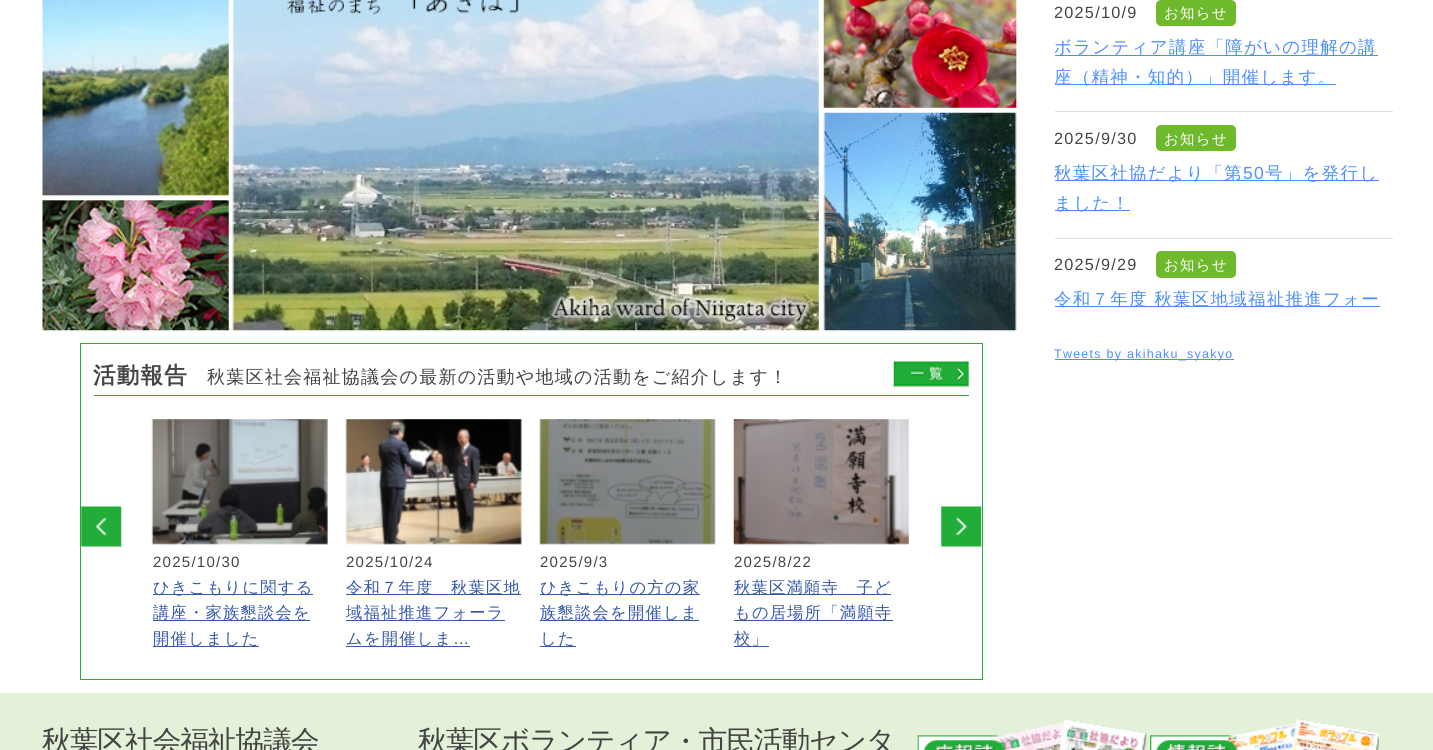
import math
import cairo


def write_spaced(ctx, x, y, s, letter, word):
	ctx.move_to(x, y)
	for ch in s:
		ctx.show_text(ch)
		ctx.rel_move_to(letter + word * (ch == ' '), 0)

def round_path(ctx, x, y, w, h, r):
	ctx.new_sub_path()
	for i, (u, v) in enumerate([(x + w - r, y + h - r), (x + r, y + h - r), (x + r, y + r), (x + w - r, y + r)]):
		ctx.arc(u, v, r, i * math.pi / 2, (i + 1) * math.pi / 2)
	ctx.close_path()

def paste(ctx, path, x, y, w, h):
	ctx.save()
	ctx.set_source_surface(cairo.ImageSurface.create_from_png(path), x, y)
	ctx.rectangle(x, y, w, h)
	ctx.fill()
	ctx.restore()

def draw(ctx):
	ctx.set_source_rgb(1, 1, 1)
	ctx.paint()
	paste(ctx, 'media/1.png', 42, 0, 980, 331)
	ctx.select_font_face('Liberation Sans')
	ctx.set_font_size(16.25)
	ctx.set_source_rgb(0.267, 0.267, 0.267)
	write_spaced(ctx, 1054, 18, '2025/10/9', 1.25, 0)
	ctx.set_source_rgb(0.435, 0.729, 0.173)
	round_path(ctx, 1156, 0, 80, 26, 5)
	ctx.fill()
	ctx.select_font_face('WenQuanYi Zen Hei Medium')
	ctx.set_font_size(14.5)
	ctx.set_source_rgb(1, 1, 1)
	write_spaced(ctx, 1164, 18, 'お知らせ', 1.25, 0)
	ctx.set_source_rgb(0.863, 0.867, 0.867)
	ctx.rectangle(1055, 111, 338, 1)
	ctx.fill()
	ctx.set_source_rgb(0.294, 0.561, 1)
	ctx.rectangle(1055, 55, 323, 1)
	ctx.fill()
	ctx.set_font_size(17.5)
	write_spaced(ctx, 1054, 53, 'ボランティア講座「障がいの理解の講', 1.25, 0)
	ctx.rectangle(1055, 84, 281, 1)
	ctx.fill()
	write_spaced(ctx, 1054, 83, '座（精神・知的）」開催します。', 1.25, 0)
	ctx.select_font_face('Liberation Sans')
	ctx.set_font_size(16.25)
	ctx.set_source_rgb(0.267, 0.267, 0.267)
	write_spaced(ctx, 1054, 144, '2025/9/30', 1.25, 0)
	ctx.set_source_rgb(0.435, 0.729, 0.173)
	round_path(ctx, 1156, 125, 80, 26, 5)
	ctx.fill()
	ctx.select_font_face('WenQuanYi Zen Hei Medium')
	ctx.set_font_size(14.5)
	ctx.set_source_rgb(1, 1, 1)
	write_spaced(ctx, 1164, 144, 'お知らせ', 1.25, 0)
	ctx.set_source_rgb(0.863, 0.867, 0.867)
	ctx.rectangle(1055, 238, 338, 1)
	ctx.fill()
	ctx.set_source_rgb(0.294, 0.561, 1)
	ctx.rectangle(1055, 180, 324, 1)
	ctx.fill()
	ctx.set_font_size(17.5)
	write_spaced(ctx, 1054, 179, '秋葉区社協だより「第', 1.25, 0)
	ctx.select_font_face('Liberation Sans')
	write_spaced(ctx, 1243, 179, '50', 1.25, 0)
	ctx.select_font_face('WenQuanYi Zen Hei Medium')
	write_spaced(ctx, 1265, 179, '号」を発行し', 1.25, 0)
	ctx.rectangle(1055, 210, 75, 1)
	ctx.fill()
	write_spaced(ctx, 1054, 209, 'ました！', 1.25, 0)
	ctx.select_font_face('Liberation Sans')
	ctx.set_font_size(16.25)
	ctx.set_source_rgb(0.267, 0.267, 0.267)
	write_spaced(ctx, 1054, 270, '2025/9/29', 1.25, 0)
	ctx.set_source_rgb(0.435, 0.729, 0.173)
	round_path(ctx, 1156, 251, 80, 27, 5)
	ctx.fill()
	ctx.select_font_face('WenQuanYi Zen Hei Medium')
	ctx.set_font_size(14.5)
	ctx.set_source_rgb(1, 1, 1)
	write_spaced(ctx, 1164, 270, 'お知らせ', 1.25, 0)
	ctx.set_source_rgb(0.294, 0.561, 1)
	ctx.rectangle(1055, 306, 325, 1)
	ctx.fill()
	ctx.set_font_size(17.5)
	write_spaced(ctx, 1054, 305, '令和７年度 秋葉区地域福祉推進フォー', 1.25, 0)
	ctx.rectangle(1055, 359, 179, 1)
	ctx.fill()
	ctx.select_font_face('Liberation Sans')
	ctx.set_font_size(12.5)
	write_spaced(ctx, 1054, 358, 'Tweets by akihaku_syakyo', 1.25, 0)
	ctx.rectangle(80.5, 343.5, 902, 336)
	ctx.set_source_rgb(0.133, 0.675, 0.22)
	ctx.set_line_width(1)
	ctx.stroke()
	ctx.rectangle(94, 395, 875, 1)
	ctx.fill()
	ctx.select_font_face('WenQuanYi Zen Hei', cairo.FONT_SLANT_NORMAL, cairo.FONT_WEIGHT_BOLD)
	ctx.set_font_size(22.5)
	ctx.set_source_rgb(0.267, 0.267, 0.267)
	write_spaced(ctx, 93, 383, '活動報告', 1.25, 0)
	ctx.select_font_face('WenQuanYi Zen Hei Medium')
	ctx.set_font_size(18)
	write_spaced(ctx, 207, 383, '秋葉区社会福祉協議会の最新の活動や地域の活動をご紹介します！', 1.25, 0)
	paste(ctx, 'media/2.png', 893, 361, 76, 26)
	paste(ctx, 'media/3.png', 81, 506, 41, 41)
	paste(ctx, 'media/4.png', 941, 506, 41, 41)
	paste(ctx, 'media/5.png', 151, 419, 177, 126)
	ctx.select_font_face('Liberation Sans')
	ctx.set_font_size(15)
	write_spaced(ctx, 153, 567, '2025/10/30', 1.25, 0)
	ctx.set_source_rgb(0.212, 0.349, 0.655)
	ctx.rectangle(153, 594, 160, 1)
	ctx.fill()
	ctx.select_font_face('WenQuanYi Zen Hei Medium')
	ctx.set_font_size(16.25)
	write_spaced(ctx, 153, 593, 'ひきこもりに関する', 1.25, 0)
	ctx.rectangle(153, 620, 157, 1)
	ctx.fill()
	write_spaced(ctx, 153, 618, '講座・家族懇談会を', 1.25, 0)
	ctx.rectangle(153, 646, 106, 1)
	ctx.fill()
	write_spaced(ctx, 153, 644, '開催しました', 1.25, 0)
	paste(ctx, 'media/6.png', 345, 419, 177, 126)
	ctx.select_font_face('Liberation Sans')
	ctx.set_font_size(15)
	ctx.set_source_rgb(0.267, 0.267, 0.267)
	write_spaced(ctx, 346, 567, '2025/10/24', 1.25, 0)
	ctx.set_source_rgb(0.212, 0.349, 0.655)
	ctx.rectangle(346, 594, 175, 1)
	ctx.fill()
	ctx.select_font_face('WenQuanYi Zen Hei Medium')
	ctx.set_font_size(16.25)
	write_spaced(ctx, 346, 593, '令和７年度　秋葉区地', 1.25, 0)
	ctx.rectangle(346, 620, 159, 1)
	ctx.fill()
	write_spaced(ctx, 346, 618, '域福祉推進フォーラ', 1.25, 0)
	ctx.rectangle(346, 646, 124, 1)
	ctx.fill()
	write_spaced(ctx, 346, 644, 'ムを開催しま', 1.25, 0)
	ctx.select_font_face('Liberation Sans')
	write_spaced(ctx, 453, 644, '…', 1.25, 0)
	paste(ctx, 'media/7.png', 539, 419, 177, 126)
	ctx.set_font_size(15)
	ctx.set_source_rgb(0.267, 0.267, 0.267)
	write_spaced(ctx, 540, 567, '2025/9/3', 1.25, 0)
	ctx.set_source_rgb(0.212, 0.349, 0.655)
	ctx.rectangle(540, 594, 160, 1)
	ctx.fill()
	ctx.select_font_face('WenQuanYi Zen Hei Medium')
	ctx.set_font_size(16.25)
	write_spaced(ctx, 540, 593, 'ひきこもりの方の家', 1.25, 0)
	ctx.rectangle(540, 620, 159, 1)
	ctx.fill()
	write_spaced(ctx, 540, 618, '族懇談会を開催しま', 1.25, 0)
	ctx.rectangle(540, 646, 36, 1)
	ctx.fill()
	write_spaced(ctx, 540, 644, 'した', 1.25, 0)
	paste(ctx, 'media/8.png', 733, 419, 176, 126)
	ctx.select_font_face('Liberation Sans')
	ctx.set_font_size(15)
	ctx.set_source_rgb(0.267, 0.267, 0.267)
	write_spaced(ctx, 734, 567, '2025/8/22', 1.25, 0)
	ctx.set_source_rgb(0.212, 0.349, 0.655)
	ctx.rectangle(734, 594, 157, 1)
	ctx.fill()
	ctx.select_font_face('WenQuanYi Zen Hei Medium')
	ctx.set_font_size(16.25)
	write_spaced(ctx, 734, 593, '秋葉区満願寺　子ど', 1.25, 0)
	ctx.rectangle(734, 620, 159, 1)
	ctx.fill()
	write_spaced(ctx, 734, 618, 'もの居場所「満願寺', 1.25, 0)
	ctx.rectangle(734, 646, 35, 1)
	ctx.fill()
	write_spaced(ctx, 734, 644, '校」', 1.25, 0)
	ctx.set_source_rgb(0.886, 0.945, 0.847)
	ctx.rectangle(0, 693, 1433, 57)
	ctx.fill()
	ctx.set_font_size(28.9)
	ctx.set_source_rgb(0.267, 0.267, 0.267)
	write_spaced(ctx, 42, 751, '秋葉区社会福祉協議会', -1.25, 0)
	write_spaced(ctx, 418, 751, '秋葉区ボランティア・市民活動センタ', -1.25, 0)
	paste(ctx, 'media/9.png', 917, 719, 230, 31)
	paste(ctx, 'media/10.png', 1150, 719, 229, 31)


surface = cairo.ImageSurface(cairo.FORMAT_RGB24, 1433, 750)
ctx = cairo.Context(surface)
options = cairo.FontOptions()
options.set_hint_metrics(cairo.HINT_METRICS_OFF)
options.set_hint_style(cairo.HINT_STYLE_NONE)
ctx.set_font_options(options)
ctx.set_miter_limit(4)
draw(ctx)
surface.write_to_png('image.png')
